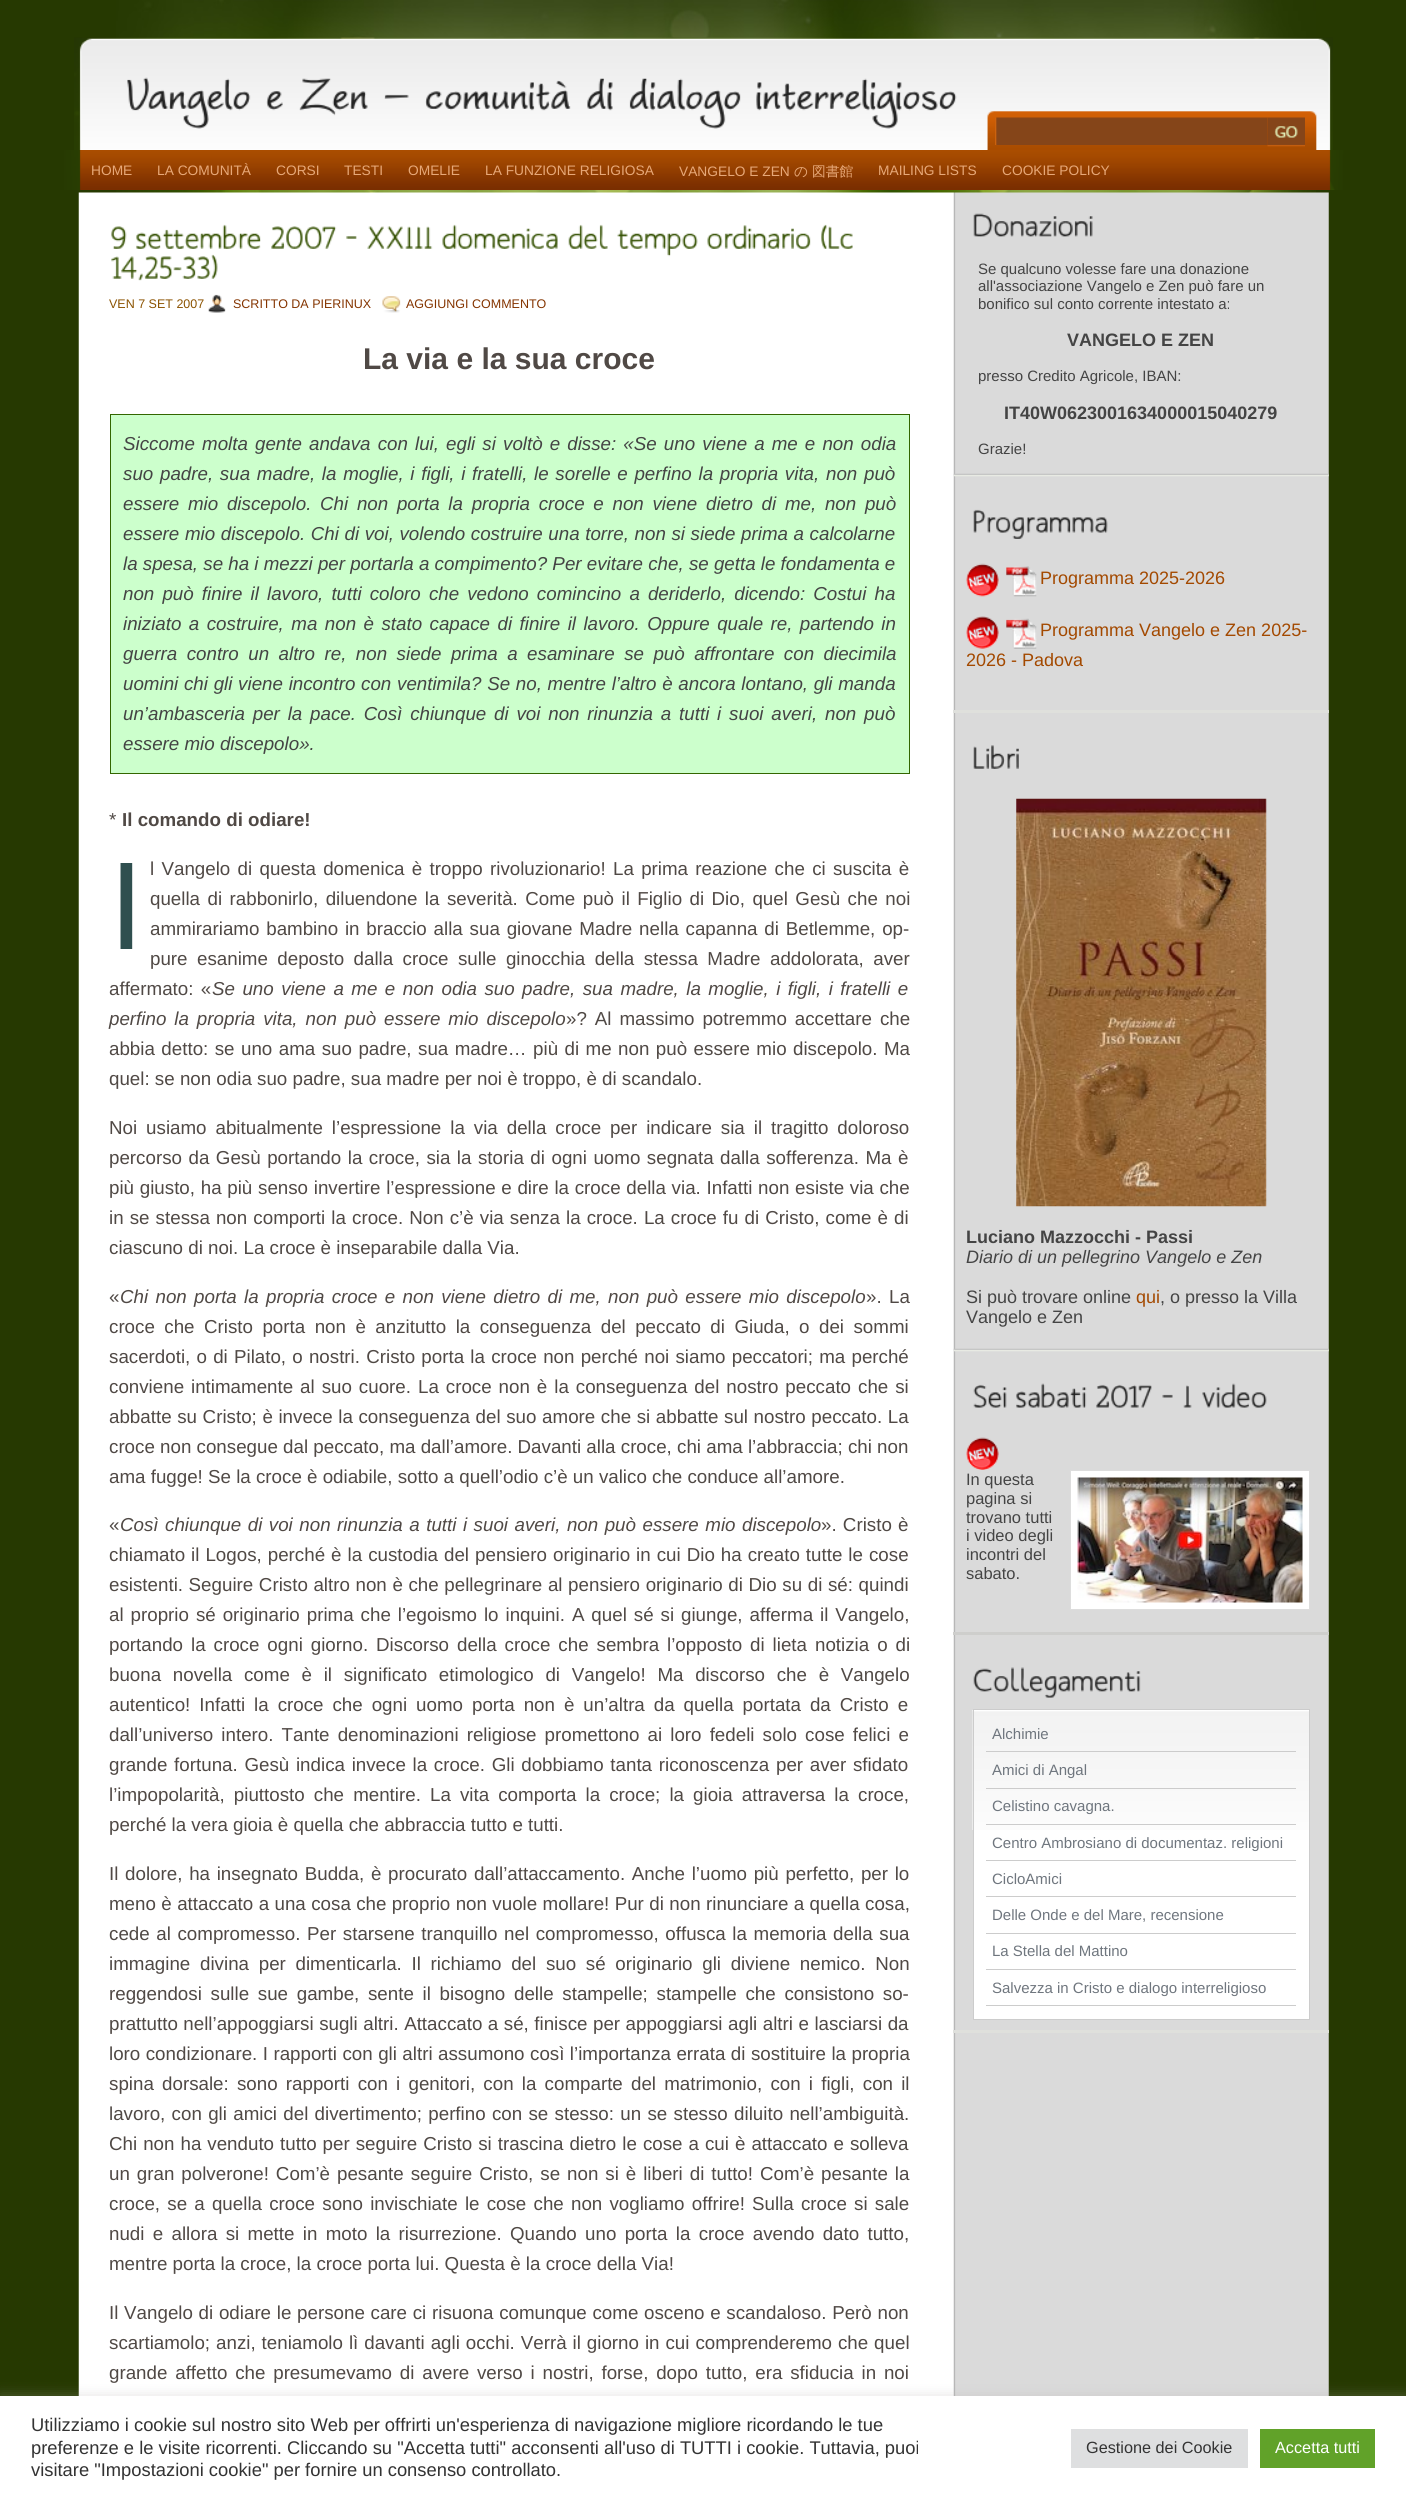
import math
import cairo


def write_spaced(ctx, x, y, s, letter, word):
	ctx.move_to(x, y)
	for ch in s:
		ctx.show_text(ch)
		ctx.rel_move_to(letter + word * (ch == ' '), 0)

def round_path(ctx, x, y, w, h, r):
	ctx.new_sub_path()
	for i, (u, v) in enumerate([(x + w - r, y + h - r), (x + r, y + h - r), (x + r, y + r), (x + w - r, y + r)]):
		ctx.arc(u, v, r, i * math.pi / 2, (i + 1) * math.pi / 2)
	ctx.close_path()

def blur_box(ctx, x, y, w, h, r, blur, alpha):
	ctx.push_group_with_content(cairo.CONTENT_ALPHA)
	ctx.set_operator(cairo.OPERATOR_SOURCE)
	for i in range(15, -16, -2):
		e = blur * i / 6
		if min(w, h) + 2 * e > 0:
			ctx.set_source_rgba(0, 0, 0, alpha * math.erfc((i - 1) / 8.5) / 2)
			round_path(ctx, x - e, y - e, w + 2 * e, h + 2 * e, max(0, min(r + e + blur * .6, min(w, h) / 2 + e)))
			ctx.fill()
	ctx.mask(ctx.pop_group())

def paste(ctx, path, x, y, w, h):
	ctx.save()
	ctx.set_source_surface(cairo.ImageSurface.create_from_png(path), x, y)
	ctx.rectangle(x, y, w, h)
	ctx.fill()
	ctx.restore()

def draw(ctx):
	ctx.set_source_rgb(0.149, 0.224, 0.004)
	ctx.paint()
	paste(ctx, 'media/1.png', 116, 0, 1200, 193)
	paste(ctx, 'media/2.png', 74, 37, 1259, 113)
	paste(ctx, 'media/3.png', 127, 77, 124, 52)
	paste(ctx, 'media/4.png', 266, 91, 17, 20)
	paste(ctx, 'media/5.png', 299, 78, 69, 38)
	paste(ctx, 'media/6.png', 384, 94, 25, 5)
	paste(ctx, 'media/7.png', 425, 80, 146, 31)
	paste(ctx, 'media/8.png', 587, 78, 26, 33)
	paste(ctx, 'media/9.png', 629, 78, 112, 51)
	paste(ctx, 'media/10.png', 756, 78, 201, 51)
	paste(ctx, 'media/11.png', 987, 111, 330, 39)
	paste(ctx, 'media/12.png', 995, 117, 273, 28)
	paste(ctx, 'media/13.png', 1267, 117, 38, 30)
	paste(ctx, 'media/14.png', 64, 150, 1280, 40)
	ctx.select_font_face('Liberation Sans')
	ctx.set_font_size(13.75)
	ctx.set_source_rgb(0.906, 0.659, 0.471)
	for x, y, s in [
		(91, 175, 'HOME'),
		(157, 175, 'LA COMUNITÀ'),
		(276, 175, 'CORSI'),
		(344, 175, 'TESTI'),
		(408, 175, 'OMELIE'),
		(485, 175, 'LA FUNZIONE RELIGIOSA'),
		(679, 176, 'VANGELO E ZEN'),
	]:
		ctx.move_to(x, y)
		ctx.show_text(s)
	ctx.select_font_face('WenQuanYi Zen Hei Medium')
	ctx.move_to(794, 176)
	ctx.show_text('の')
	ctx.move_to(812, 176)
	ctx.show_text('図書館')
	ctx.select_font_face('Liberation Sans')
	ctx.move_to(878, 175)
	ctx.show_text('MAILING LISTS')
	ctx.move_to(1002, 175)
	ctx.show_text('COOKIE POLICY')
	paste(ctx, 'media/15.png', 78, 192, 1251, 2204)
	paste(ctx, 'media/16.png', 111, 226, 16, 23)
	paste(ctx, 'media/17.png', 136, 224, 125, 25)
	paste(ctx, 'media/18.png', 271, 226, 66, 23)
	paste(ctx, 'media/19.png', 346, 236, 11, 3)
	paste(ctx, 'media/20.png', 367, 226, 66, 23)
	paste(ctx, 'media/21.png', 442, 224, 116, 25)
	paste(ctx, 'media/22.png', 568, 224, 40, 25)
	paste(ctx, 'media/23.png', 617, 229, 81, 28)
	paste(ctx, 'media/24.png', 707, 225, 104, 24)
	paste(ctx, 'media/25.png', 821, 224, 32, 25)
	paste(ctx, 'media/26.png', 111, 254, 107, 27)
	ctx.set_font_size(12.5)
	ctx.set_source_rgb(0.545, 0.325, 0.004)
	ctx.move_to(109, 308)
	ctx.show_text('VEN 7 SET 2007')
	paste(ctx, 'media/27.png', 208, 294, 18, 19)
	ctx.set_source_rgb(0.518, 0.204, 0)
	ctx.move_to(233, 308)
	ctx.show_text('SCRITTO DA PIERINUX')
	paste(ctx, 'media/28.png', 382, 296, 19, 17)
	ctx.move_to(406, 308)
	ctx.show_text('AGGIUNGI COMMENTO')
	ctx.select_font_face('Liberation Sans', cairo.FONT_SLANT_NORMAL, cairo.FONT_WEIGHT_BOLD)
	ctx.set_font_size(30)
	ctx.set_source_rgb(0.314, 0.286, 0.271)
	ctx.move_to(363, 369)
	ctx.show_text('La via e la sua croce')
	ctx.set_source_rgb(0.8, 1, 0.8)
	ctx.rectangle(110.5, 414.5, 799, 359)
	ctx.fill_preserve()
	ctx.set_source_rgb(0.2, 0.4, 0)
	ctx.set_line_width(1)
	ctx.stroke()
	ctx.select_font_face('Liberation Sans', cairo.FONT_SLANT_ITALIC)
	ctx.set_font_size(18.75)
	ctx.set_source_rgb(0.267, 0.267, 0.267)
	write_spaced(ctx, 123, 450, 'Siccome molta gente andava con lui, egli si voltò e disse: «Se uno viene a me e non odia', 0, 1.9)
	write_spaced(ctx, 123, 480, 'suo padre, sua madre, la moglie, i figli, i fratelli, le sorelle e perfino la propria vita, non può', 0, 1.5)
	write_spaced(ctx, 123, 510, 'essere mio discepolo. Chi non porta la propria croce e non viene dietro di me, non può', 0, 3.5)
	write_spaced(ctx, 123, 540, 'essere mio discepolo. Chi di voi, volendo costruire una torre, non si siede prima a calcolarne', 0, 0.4)
	ctx.move_to(123, 570)
	ctx.show_text('la spesa, se ha i mezzi per portarla a compimento? Per evitare che, se getta le fondamenta e')
	write_spaced(ctx, 123, 600, 'non può finire il lavoro, tutti coloro che vedono comincino a deriderlo, dicendo: Costui ha', 0, 2.9)
	write_spaced(ctx, 123, 630, 'iniziato a costruire, ma non è stato capace di finire il lavoro. Oppure quale re, partendo in', 0, 2.25)
	write_spaced(ctx, 123, 660, 'guerra contro un altro re, non siede prima a esaminare se può affrontare con diecimila', 0, 4.25)
	write_spaced(ctx, 123, 690, 'uomini chi gli viene incontro con ventimila? Se no, mentre l’altro è ancora lontano, gli manda', 0, 0.5)
	write_spaced(ctx, 123, 720, 'un’ambasceria per la pace. Così chiunque di voi non rinunzia a tutti i suoi averi, non può', 0, 2.6)
	ctx.move_to(123, 750)
	ctx.show_text('essere mio discepolo».')
	ctx.select_font_face('Liberation Sans')
	ctx.set_source_rgb(0.314, 0.286, 0.271)
	ctx.move_to(109, 826)
	ctx.show_text('*')
	ctx.select_font_face('Liberation Sans', cairo.FONT_SLANT_NORMAL, cairo.FONT_WEIGHT_BOLD)
	ctx.move_to(122, 826)
	ctx.show_text('Il comando di odiare!')
	ctx.select_font_face('Liberation Sans')
	ctx.set_font_size(125)
	ctx.set_source_rgb(0.184, 0.31, 0.31)
	ctx.move_to(109, 949)
	ctx.show_text('I')
	ctx.set_font_size(18.75)
	ctx.set_source_rgb(0.314, 0.286, 0.271)
	write_spaced(ctx, 150, 875, 'l Vangelo di questa domenica è troppo rivoluzionario! La prima reazione che ci suscita è', 0, 2.1)
	write_spaced(ctx, 150, 905, 'quella di rabbonirlo, diluendone la severità. Come può il Figlio di Dio, quel Gesù che noi', 0, 2.25)
	write_spaced(ctx, 150, 935, 'ammirariamo bambino in braccio alla sua giovane Madre nella capanna di Betlemme, op-', 0, 1.6)
	write_spaced(ctx, 150, 965, 'pure esanime deposto dalla croce sulle ginocchia della stessa Madre addolorata, aver', 0, 4.25)
	write_spaced(ctx, 109, 995, 'affermato: «', 0, 2)
	ctx.select_font_face('Liberation Sans', cairo.FONT_SLANT_ITALIC)
	write_spaced(ctx, 212, 995, 'Se uno viene a me e non odia suo padre, sua madre, la moglie, i figli, i fratelli e', 0, 2.25)
	write_spaced(ctx, 109, 1025, 'perfino la propria vita, non può essere mio discepolo', 0, 2.75)
	ctx.select_font_face('Liberation Sans')
	write_spaced(ctx, 566, 1025, '»? Al massimo potremmo accettare che', 0, 2.75)
	write_spaced(ctx, 109, 1055, 'abbia detto: se uno ama suo padre, sua madre… più di me non può essere mio discepolo. Ma', 0, 1.25)
	ctx.move_to(109, 1085)
	ctx.show_text('quel: se non odia suo padre, sua madre per noi è troppo, è di scandalo.')
	write_spaced(ctx, 109, 1134, 'Noi usiamo abitualmente l’espressione la via della croce per indicare sia il tragitto doloroso', 0, 3.75)
	write_spaced(ctx, 109, 1164, 'percorso da Gesù portando la croce, sia la storia di ogni uomo segnata dalla sofferenza. Ma è', 0, 1.3)
	write_spaced(ctx, 109, 1194, 'più giusto, ha più senso invertire l’espressione e dire la croce della via. Infatti non esiste via che', 0, 0.5)
	write_spaced(ctx, 109, 1224, 'in se stessa non comporti la croce. Non c’è via senza la croce. La croce fu di Cristo, come è di', 0, 0.9)
	ctx.move_to(109, 1254)
	ctx.show_text('ciascuno di noi. La croce è inseparabile dalla Via.')
	ctx.move_to(109, 1303)
	ctx.show_text('«')
	ctx.select_font_face('Liberation Sans', cairo.FONT_SLANT_ITALIC)
	write_spaced(ctx, 120, 1303, 'Chi non porta la propria croce e non viene dietro di me, non può essere mio discepolo', 0, 2.1)
	ctx.select_font_face('Liberation Sans')
	write_spaced(ctx, 866, 1303, '». La', 0, 2.1)
	write_spaced(ctx, 109, 1333, 'croce che Cristo porta non è anzitutto la conseguenza del peccato di Giuda, o dei sommi', 0, 4.25)
	write_spaced(ctx, 109, 1363, 'sacerdoti, o di Pilato, o nostri. Cristo porta la croce non perché noi siamo peccatori; ma perché', 0, 1)
	write_spaced(ctx, 109, 1393, 'conviene intimamente al suo cuore. La croce non è la conseguenza del nostro peccato che si', 0, 1.75)
	write_spaced(ctx, 109, 1423, 'abbatte su Cristo; è invece la conseguenza del suo amore che si abbatte sul nostro peccato. La', 0, 0.4)
	for x, y, s in [
		(109, 1453, 'croce non consegue dal peccato, ma dall’amore. Davanti alla croce, chi ama l’abbraccia; chi non'),
		(109, 1483, 'ama fugge! Se la croce è odiabile, sotto a quell’odio c’è un valico che conduce all’amore.'),
		(109, 1531, '«'),
	]:
		ctx.move_to(x, y)
		ctx.show_text(s)
	ctx.select_font_face('Liberation Sans', cairo.FONT_SLANT_ITALIC)
	write_spaced(ctx, 120, 1531, 'Così chiunque di voi non rinunzia a tutti i suoi averi, non può essere mio discepolo', 0, 1.3)
	ctx.select_font_face('Liberation Sans')
	write_spaced(ctx, 821, 1531, '». Cristo è', 0, 1)
	write_spaced(ctx, 109, 1561, 'chiamato il Logos, perché è la custodia del pensiero originario in cui Dio ha creato tutte le cose', 0, 0.8)
	write_spaced(ctx, 109, 1591, 'esistenti. Seguire Cristo altro non è che pellegrinare al pensiero originario di Dio su di sé: quindi', 0, 0.4)
	write_spaced(ctx, 109, 1621, 'al proprio sé originario prima che l’egoismo lo inquini. A quel sé si giunge, afferma il Vangelo,', 0, 1.75)
	write_spaced(ctx, 109, 1651, 'portando la croce ogni giorno. Discorso della croce che sembra l’opposto di lieta notizia o di', 0, 2.75)
	write_spaced(ctx, 109, 1681, 'buona novella come è il significato etimologico di Vangelo! Ma discorso che è Vangelo', 0, 6.5)
	write_spaced(ctx, 109, 1711, 'autentico! Infatti la croce che ogni uomo porta non è un’altra da quella portata da Cristo e', 0, 3.75)
	write_spaced(ctx, 109, 1741, 'dall’universo intero. Tante denominazioni religiose promettono ai loro fedeli solo cose felici e', 0, 2.9)
	write_spaced(ctx, 109, 1771, 'grande fortuna. Gesù indica invece la croce. Gli dobbiamo tanta riconoscenza per aver sfidato', 0, 1.5)
	write_spaced(ctx, 109, 1801, 'l’impopolarità, piuttosto che mentire. La vita comporta la croce; la gioia attraversa la croce,', 0, 3.9)
	ctx.move_to(109, 1831)
	ctx.show_text('perché la vera gioia è quella che abbraccia tutto e tutti.')
	write_spaced(ctx, 109, 1880, 'Il dolore, ha insegnato Budda, è procurato dall’attaccamento. Anche l’uomo più perfetto, per lo', 0, 1.5)
	write_spaced(ctx, 109, 1910, 'meno è attaccato a una cosa che proprio non vuole mollare! Pur di non rinunciare a quella cosa,', 0, 0.2)
	write_spaced(ctx, 109, 1940, 'cede al compromesso. Per starsene tranquillo nel compromesso, offusca la memoria della sua', 0, 1.4)
	write_spaced(ctx, 109, 1970, 'immagine divina per dimenticarla. Il richiamo del suo sé originario gli diviene nemico. Non', 0, 4.5)
	write_spaced(ctx, 109, 2000, 'reggendosi sulle sue gambe, sente il bisogno delle stampelle; stampelle che consistono so-', 0, 3.5)
	write_spaced(ctx, 109, 2030, 'prattutto nell’appoggiarsi sugli altri. Attaccato a sé, finisce per appoggiarsi agli altri e lasciarsi da', 0, 0.3)
	write_spaced(ctx, 109, 2060, 'loro condizionare. I rapporti con gli altri assumono così l’importanza errata di sostituire la propria', 0, 0.25)
	write_spaced(ctx, 109, 2090, 'spina dorsale: sono rapporti con i genitori, con la comparte del matrimonio, con i figli, con il', 0, 3)
	write_spaced(ctx, 109, 2120, 'lavoro, con gli amici del divertimento; perfino con se stesso: un se stesso diluito nell’ambiguità.', 0, 1.1)
	write_spaced(ctx, 109, 2150, 'Chi non ha venduto tutto per seguire Cristo si trascina dietro le cose a cui è attaccato e solleva', 0, 0.8)
	write_spaced(ctx, 109, 2180, 'un gran polverone! Com’è pesante seguire Cristo, se non si è liberi di tutto! Com’è pesante la', 0, 1.75)
	write_spaced(ctx, 109, 2210, 'croce, se a quella croce sono invischiate le cose che non vogliamo offrire! Sulla croce si sale', 0, 2)
	write_spaced(ctx, 109, 2240, 'nudi e allora si mette in moto la risurrezione. Quando uno porta la croce avendo dato tutto,', 0, 3.1)
	ctx.move_to(109, 2270)
	ctx.show_text('mentre porta la croce, la croce porta lui. Questa è la croce della Via!')
	write_spaced(ctx, 109, 2319, 'Il Vangelo di odiare le persone care ci risuona comunque come osceno e scandaloso. Però non', 0, 0.5)
	write_spaced(ctx, 109, 2349, 'scartiamolo; anzi, teniamolo lì davanti agli occhi. Verrà il giorno in cui comprenderemo che quel', 0, 0.75)
	write_spaced(ctx, 109, 2379, 'grande affetto che presumevamo di avere verso i nostri, forse, dopo tutto, era sfiducia in noi', 0, 2.6)
	paste(ctx, 'media/29.png', 953, 473, 376, 4)
	paste(ctx, 'media/30.png', 973, 213, 120, 24)
	ctx.set_font_size(15)
	ctx.set_source_rgb(0.267, 0.267, 0.267)
	for x, y, s in [
		(978, 274, 'Se qualcuno volesse fare una donazione'),
		(978, 291, 'all\'associazione Vangelo e Zen può fare un'),
		(978, 309, 'bonifico sul conto corrente intestato a:'),
	]:
		ctx.move_to(x, y)
		ctx.show_text(s)
	ctx.select_font_face('Liberation Sans', cairo.FONT_SLANT_NORMAL, cairo.FONT_WEIGHT_BOLD)
	ctx.set_font_size(18)
	ctx.move_to(1067, 346)
	ctx.show_text('VANGELO E ZEN')
	ctx.select_font_face('Liberation Sans')
	ctx.set_font_size(15)
	ctx.move_to(978, 381)
	ctx.show_text('presso Credito Agricole, IBAN:')
	ctx.select_font_face('Liberation Sans', cairo.FONT_SLANT_NORMAL, cairo.FONT_WEIGHT_BOLD)
	ctx.set_font_size(18)
	ctx.move_to(1004, 419)
	ctx.show_text('IT40W0623001634000015040279')
	ctx.select_font_face('Liberation Sans')
	ctx.set_font_size(15)
	ctx.move_to(978, 454)
	ctx.show_text('Grazie!')
	ctx.set_source_rgb(0.875, 0.878, 0.863)
	ctx.rectangle(953, 710, 376, 3)
	ctx.fill()
	paste(ctx, 'media/31.png', 973, 509, 135, 30)
	paste(ctx, 'media/32.png', 966, 563, 33, 34)
	paste(ctx, 'media/33.png', 1006, 566, 31, 31)
	ctx.set_font_size(18)
	ctx.set_source_rgb(0.639, 0.286, 0)
	ctx.move_to(1040, 584)
	ctx.show_text('Programma 2025-2026')
	paste(ctx, 'media/34.png', 966, 616, 33, 33)
	paste(ctx, 'media/35.png', 1006, 618, 31, 31)
	ctx.move_to(1040, 636)
	ctx.show_text('Programma Vangelo e Zen 2025-')
	ctx.move_to(966, 666)
	ctx.show_text('2026 - Padova')
	paste(ctx, 'media/36.png', 953, 1348, 376, 4)
	paste(ctx, 'media/37.png', 973, 745, 46, 24)
	paste(ctx, 'media/38.png', 1016, 798, 251, 409)
	ctx.select_font_face('Liberation Sans', cairo.FONT_SLANT_NORMAL, cairo.FONT_WEIGHT_BOLD)
	ctx.set_source_rgb(0.267, 0.267, 0.267)
	ctx.move_to(966, 1243)
	ctx.show_text('Luciano Mazzocchi - Passi')
	ctx.select_font_face('Liberation Sans', cairo.FONT_SLANT_ITALIC)
	ctx.move_to(966, 1263)
	ctx.show_text('Diario di un pellegrino Vangelo e Zen')
	ctx.select_font_face('Liberation Sans')
	ctx.move_to(966, 1303)
	ctx.show_text('Si può trovare online')
	ctx.set_source_rgb(0.639, 0.286, 0)
	ctx.move_to(1136, 1303)
	ctx.show_text('qui')
	ctx.set_source_rgb(0.267, 0.267, 0.267)
	ctx.move_to(1160, 1303)
	ctx.show_text(', o presso la Villa')
	ctx.move_to(966, 1323)
	ctx.show_text('Vangelo e Zen')
	ctx.set_source_rgb(0.808, 0.808, 0.8)
	ctx.rectangle(953, 1632, 376, 3)
	ctx.fill()
	paste(ctx, 'media/39.png', 973, 1384, 34, 24)
	paste(ctx, 'media/40.png', 1016, 1383, 71, 25)
	paste(ctx, 'media/41.png', 1096, 1384, 56, 24)
	paste(ctx, 'media/42.png', 1162, 1394, 11, 4)
	paste(ctx, 'media/43.png', 1183, 1385, 9, 23)
	paste(ctx, 'media/44.png', 1202, 1383, 65, 25)
	paste(ctx, 'media/45.png', 966, 1437, 33, 33)
	ctx.set_font_size(16.5)
	ctx.set_source_rgb(0.267, 0.267, 0.267)
	ctx.move_to(966, 1485)
	ctx.show_text('In questa')
	ctx.set_source_rgb(1, 1, 1)
	ctx.rectangle(1070.5, 1470.5, 239, 139)
	ctx.fill_preserve()
	ctx.set_source_rgb(0.867, 0.867, 0.867)
	ctx.stroke()
	paste(ctx, 'media/46.png', 1077, 1477, 226, 126)
	ctx.set_source_rgb(0.267, 0.267, 0.267)
	for x, y, s in [
		(966, 1504, 'pagina si'),
		(966, 1523, 'trovano tutti'),
		(966, 1541, 'i video degli'),
		(966, 1560, 'incontri del'),
		(966, 1579, 'sabato.'),
	]:
		ctx.move_to(x, y)
		ctx.show_text(s)
	ctx.set_source_rgb(0.875, 0.878, 0.863)
	ctx.rectangle(953, 2030, 376, 3)
	ctx.fill()
	paste(ctx, 'media/47.png', 973, 1667, 168, 31)
	ctx.set_source_rgb(1, 1, 1)
	ctx.rectangle(974, 1830, 335, 189)
	ctx.fill()
	paste(ctx, 'media/48.png', 972, 1710, 337, 120)
	ctx.rectangle(973.5, 1709.5, 336, 310)
	ctx.set_source_rgb(0.8, 0.8, 0.8)
	ctx.stroke()
	ctx.rectangle(986, 1751, 310, 1)
	ctx.fill()
	ctx.set_font_size(15)
	ctx.set_source_rgb(0.435, 0.463, 0.494)
	ctx.move_to(992, 1739)
	ctx.show_text('Alchimie')
	ctx.set_source_rgb(0.8, 0.8, 0.8)
	ctx.rectangle(986, 1788, 310, 1)
	ctx.fill()
	ctx.set_source_rgb(0.435, 0.463, 0.494)
	ctx.move_to(992, 1775)
	ctx.show_text('Amici di Angal')
	ctx.set_source_rgb(0.8, 0.8, 0.8)
	ctx.rectangle(986, 1824, 310, 1)
	ctx.fill()
	ctx.set_source_rgb(0.435, 0.463, 0.494)
	ctx.move_to(992, 1811)
	ctx.show_text('Celistino cavagna.')
	ctx.set_source_rgb(0.8, 0.8, 0.8)
	ctx.rectangle(986, 1860, 310, 1)
	ctx.fill()
	ctx.set_source_rgb(0.435, 0.463, 0.494)
	ctx.move_to(992, 1848)
	ctx.show_text('Centro Ambrosiano di documentaz. religioni')
	ctx.set_source_rgb(0.8, 0.8, 0.8)
	ctx.rectangle(986, 1896, 310, 1)
	ctx.fill()
	ctx.set_source_rgb(0.435, 0.463, 0.494)
	ctx.move_to(992, 1884)
	ctx.show_text('CicloAmici')
	ctx.set_source_rgb(0.8, 0.8, 0.8)
	ctx.rectangle(986, 1933, 310, 1)
	ctx.fill()
	ctx.set_source_rgb(0.435, 0.463, 0.494)
	ctx.move_to(992, 1920)
	ctx.show_text('Delle Onde e del Mare, recensione')
	ctx.set_source_rgb(0.8, 0.8, 0.8)
	ctx.rectangle(986, 1969, 310, 1)
	ctx.fill()
	ctx.set_source_rgb(0.435, 0.463, 0.494)
	ctx.move_to(992, 1956)
	ctx.show_text('La Stella del Mattino')
	ctx.set_source_rgb(0.8, 0.8, 0.8)
	ctx.rectangle(986, 2005, 310, 1)
	ctx.fill()
	ctx.set_source_rgb(0.435, 0.463, 0.494)
	ctx.move_to(992, 1993)
	ctx.show_text('Salvezza in Cristo e dialogo interreligioso')
	ctx.set_source_rgb(0.675, 0.671, 0.671)
	blur_box(ctx, 0, 2395, 1406, 103, 0, 6, 0.3)
	ctx.set_source_rgb(1, 1, 1)
	ctx.rectangle(0, 2396, 1406, 102)
	ctx.fill()
	ctx.set_font_size(18.35)
	ctx.set_source_rgb(0.2, 0.2, 0.2)
	for x, y, s in [
		(31, 2431, 'Utilizziamo i cookie sul nostro sito Web per offrirti un\'esperienza di navigazione migliore ricordando le tue'),
		(31, 2454, 'preferenze e le visite ricorrenti. Cliccando su "Accetta tutti" acconsenti all\'uso di TUTTI i cookie. Tuttavia, puoi'),
		(31, 2476, 'visitare "Impostazioni cookie" per fornire un consenso controllato.'),
	]:
		ctx.move_to(x, y)
		ctx.show_text(s)
	ctx.set_source_rgb(0.871, 0.875, 0.878)
	ctx.rectangle(1071, 2429, 177, 39)
	ctx.fill()
	ctx.set_font_size(16.25)
	ctx.set_source_rgb(0.2, 0.2, 0.2)
	ctx.move_to(1086, 2453)
	ctx.show_text('Gestione dei Cookie')
	ctx.set_source_rgb(0.38, 0.635, 0.161)
	ctx.rectangle(1260, 2429, 115, 39)
	ctx.fill()
	ctx.set_source_rgb(1, 1, 1)
	ctx.move_to(1275, 2453)
	ctx.show_text('Accetta tutti')


surface = cairo.ImageSurface(cairo.FORMAT_RGB24, 1406, 2498)
ctx = cairo.Context(surface)
options = cairo.FontOptions()
options.set_hint_metrics(cairo.HINT_METRICS_OFF)
options.set_hint_style(cairo.HINT_STYLE_NONE)
ctx.set_font_options(options)
ctx.set_miter_limit(4)
draw(ctx)
surface.write_to_png('image.png')
